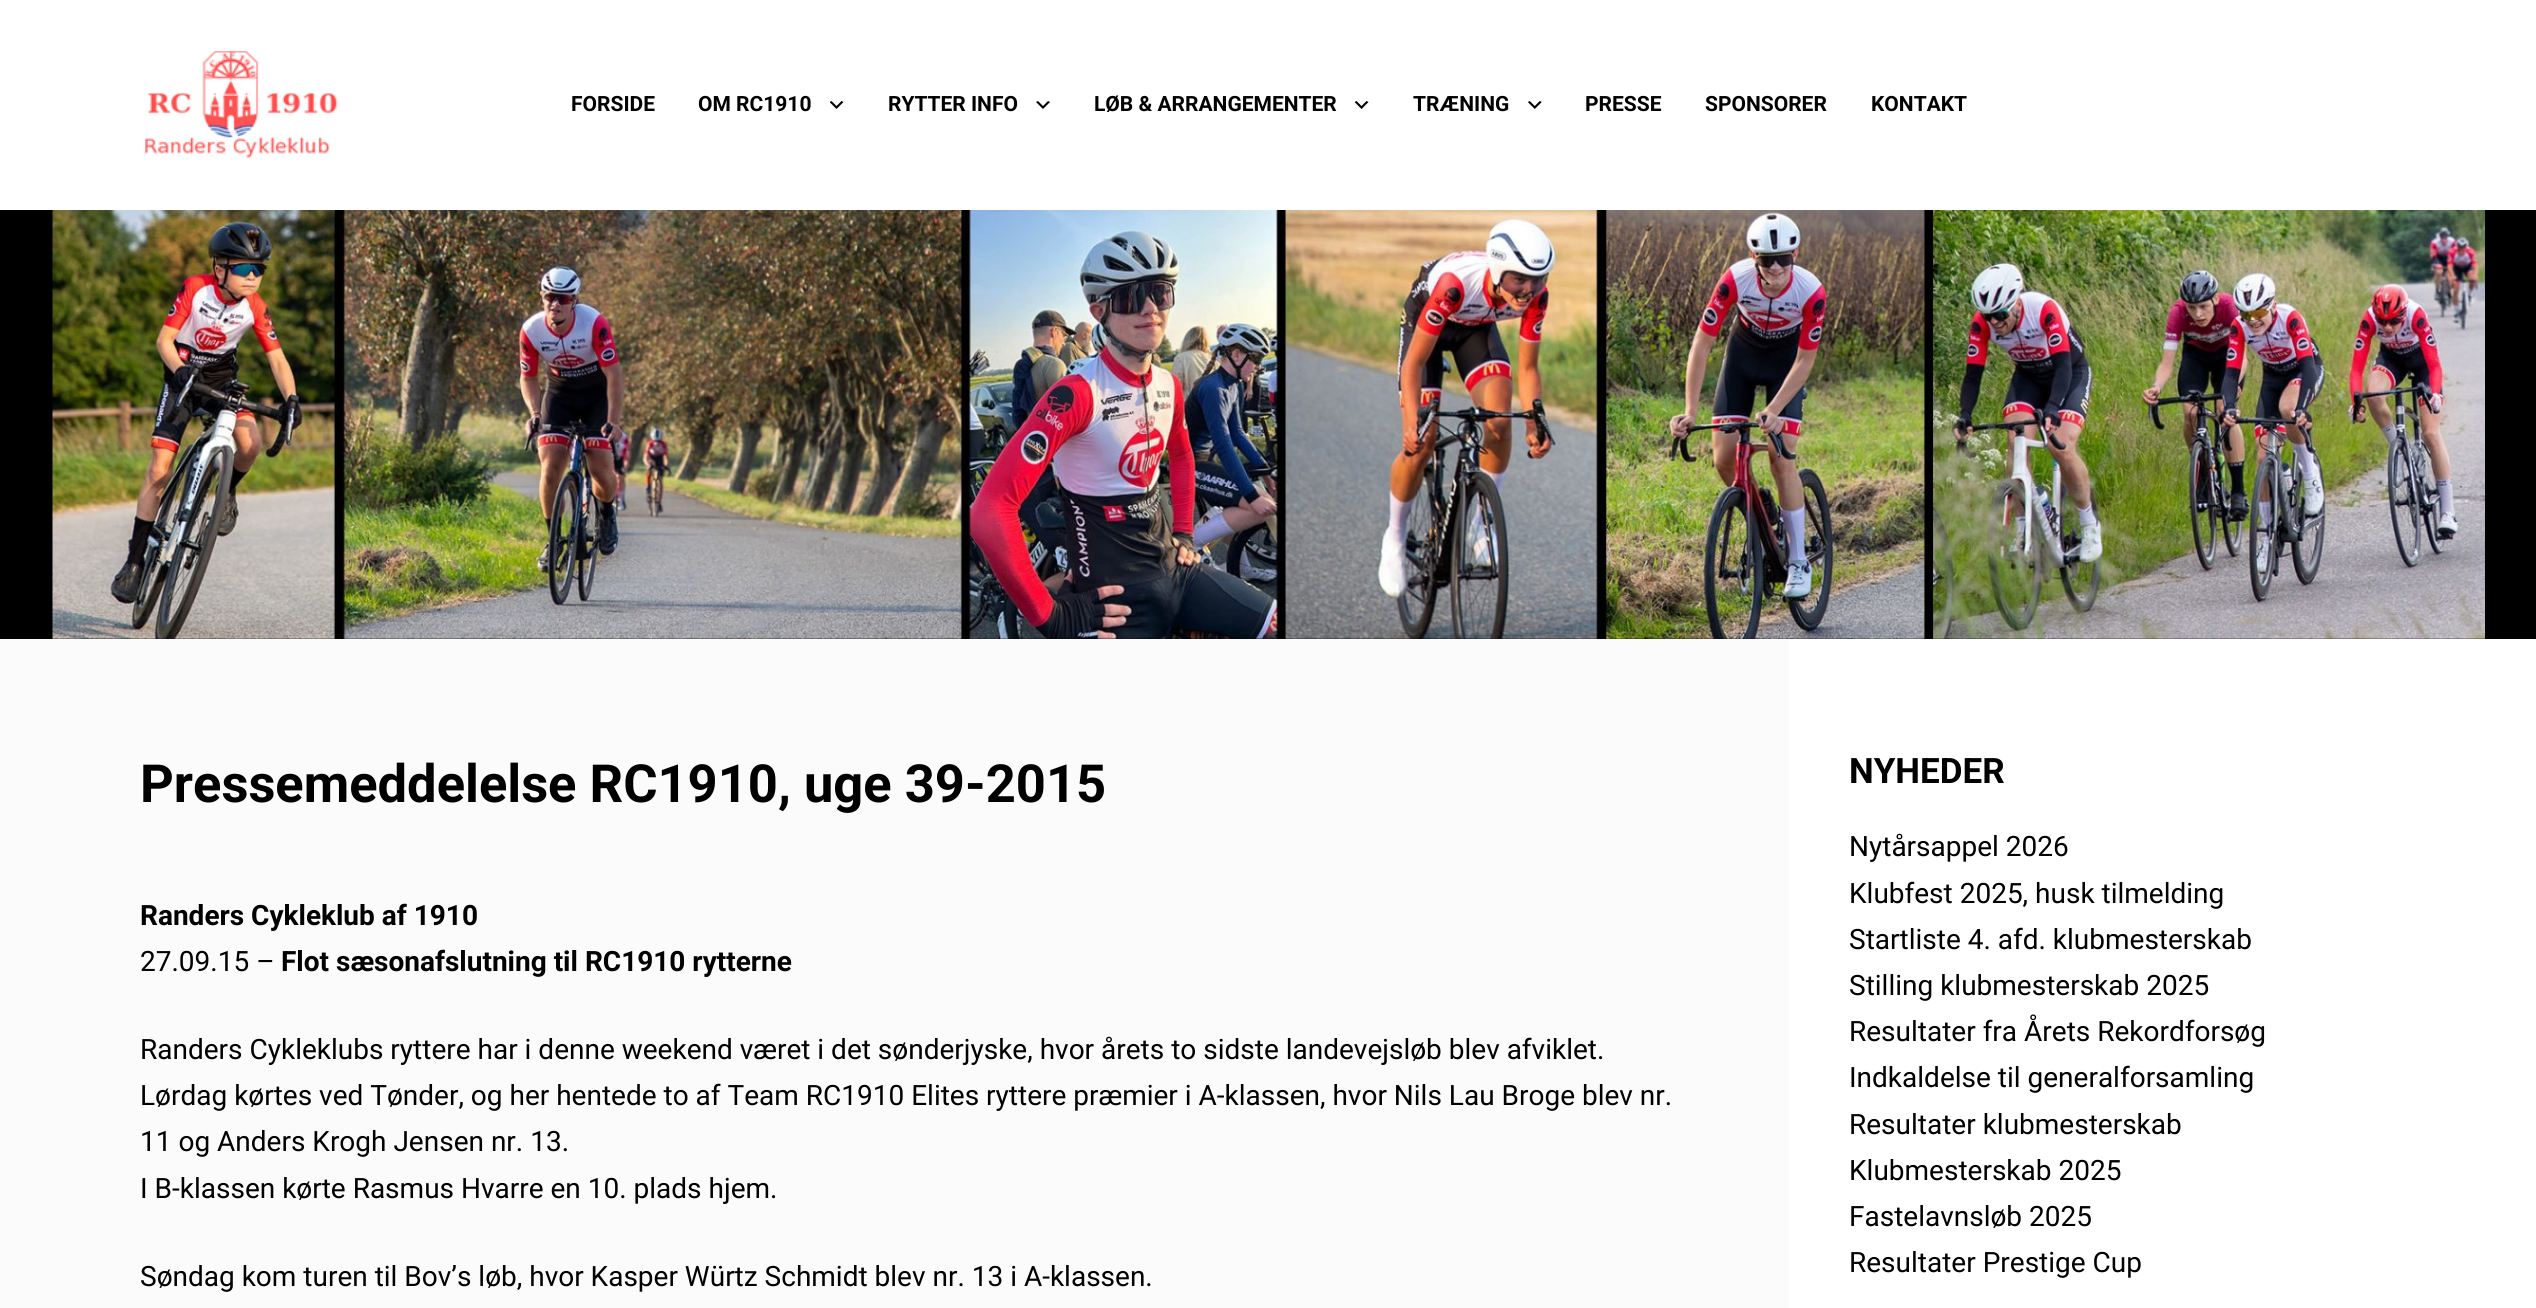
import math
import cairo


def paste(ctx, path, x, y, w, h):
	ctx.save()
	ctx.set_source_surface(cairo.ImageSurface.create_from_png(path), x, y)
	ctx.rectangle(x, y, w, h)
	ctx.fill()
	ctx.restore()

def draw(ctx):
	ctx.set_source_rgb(0.984, 0.984, 0.988)
	ctx.paint()
	ctx.set_source_rgb(1, 1, 1)
	ctx.rectangle(0, 0, 2536, 210)
	ctx.fill()
	paste(ctx, 'media/1.png', 145, 51, 193, 108)
	ctx.select_font_face('Roboto', cairo.FONT_SLANT_NORMAL, cairo.FONT_WEIGHT_BOLD)
	ctx.set_font_size(21)
	ctx.set_source_rgb(0, 0, 0)
	ctx.move_to(571, 111)
	ctx.show_text('FORSIDE')
	ctx.move_to(698, 111)
	ctx.show_text('OM RC1910')
	paste(ctx, 'media/2.png', 830, 101, 14, 8)
	ctx.move_to(888, 111)
	ctx.show_text('RYTTER INFO')
	paste(ctx, 'media/3.png', 1036, 101, 14, 8)
	ctx.move_to(1094, 111)
	ctx.show_text('LØB & ARRANGEMENTER')
	paste(ctx, 'media/2.png', 1355, 101, 14, 8)
	ctx.move_to(1413, 111)
	ctx.show_text('TRÆNING')
	paste(ctx, 'media/4.png', 1528, 101, 14, 8)
	for x, y, s in [
		(1585, 111, 'PRESSE'),
		(1705, 111, 'SPONSORER'),
		(1871, 111, 'KONTAKT'),
	]:
		ctx.move_to(x, y)
		ctx.show_text(s)
	ctx.rectangle(0, 210, 2536, 429)
	ctx.fill()
	paste(ctx, 'media/5.png', 52, 210, 2433, 429)
	ctx.set_font_size(52.5)
	ctx.move_to(140, 802)
	ctx.show_text('Pressemeddelelse RC1910, uge 39-2015')
	ctx.set_font_size(28)
	ctx.move_to(140, 925)
	ctx.show_text('Randers Cykleklub af 1910')
	ctx.select_font_face('Roboto')
	ctx.move_to(140, 971)
	ctx.show_text('27.09.15 –')
	ctx.select_font_face('Roboto', cairo.FONT_SLANT_NORMAL, cairo.FONT_WEIGHT_BOLD)
	ctx.move_to(281, 971)
	ctx.show_text('Flot sæsonafslutning til RC1910 rytterne')
	ctx.select_font_face('Roboto')
	for x, y, s in [
		(140, 1059, 'Randers Cykleklubs ryttere har i denne weekend været i det sønderjyske, hvor årets to sidste landevejsløb blev afviklet.'),
		(140, 1105, 'Lørdag kørtes ved Tønder, og her hentede to af Team RC1910 Elites ryttere præmier i A-klassen, hvor Nils Lau Broge blev nr.'),
		(140, 1151, '11 og Anders Krogh Jensen nr. 13.'),
		(140, 1198, 'I B-klassen kørte Rasmus Hvarre en 10. plads hjem.'),
		(140, 1286, 'Søndag kom turen til Bov’s løb, hvor Kasper Würtz Schmidt blev nr. 13 i A-klassen.'),
	]:
		ctx.move_to(x, y)
		ctx.show_text(s)
	ctx.set_source_rgb(1, 1, 1)
	ctx.rectangle(1789, 639, 747, 669)
	ctx.fill()
	ctx.select_font_face('Roboto', cairo.FONT_SLANT_NORMAL, cairo.FONT_WEIGHT_BOLD)
	ctx.set_font_size(35)
	ctx.set_source_rgb(0, 0, 0)
	ctx.move_to(1849, 783)
	ctx.show_text('NYHEDER')
	ctx.select_font_face('Roboto')
	ctx.set_font_size(28)
	for x, y, s in [
		(1849, 856, 'Nytårsappel 2026'),
		(1849, 903, 'Klubfest 2025, husk tilmelding'),
		(1849, 949, 'Startliste 4. afd. klubmesterskab'),
		(1849, 995, 'Stilling klubmesterskab 2025'),
		(1849, 1041, 'Resultater fra Årets Rekordforsøg'),
		(1849, 1087, 'Indkaldelse til generalforsamling'),
		(1849, 1134, 'Resultater klubmesterskab'),
		(1849, 1180, 'Klubmesterskab 2025'),
		(1849, 1226, 'Fastelavnsløb 2025'),
		(1849, 1272, 'Resultater Prestige Cup'),
	]:
		ctx.move_to(x, y)
		ctx.show_text(s)


surface = cairo.ImageSurface(cairo.FORMAT_RGB24, 2536, 1308)
ctx = cairo.Context(surface)
options = cairo.FontOptions()
options.set_hint_metrics(cairo.HINT_METRICS_OFF)
options.set_hint_style(cairo.HINT_STYLE_NONE)
ctx.set_font_options(options)
ctx.set_miter_limit(4)
draw(ctx)
surface.write_to_png('image.png')
